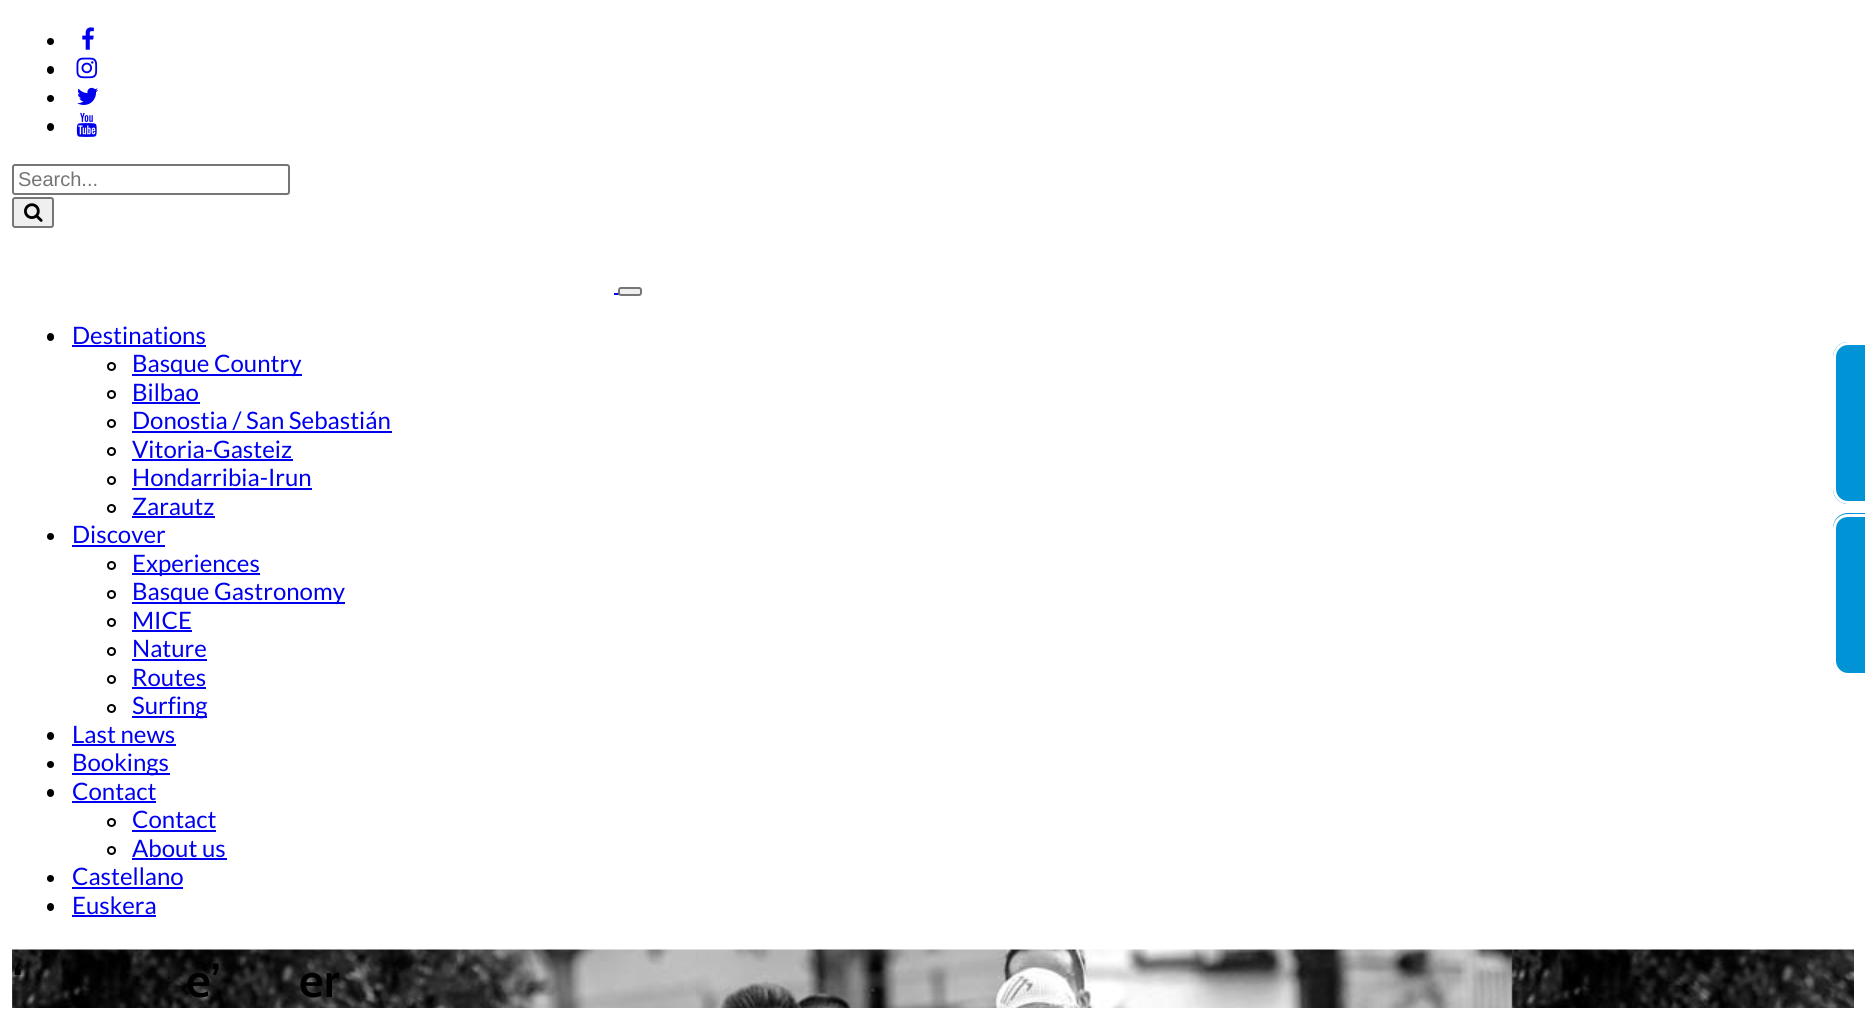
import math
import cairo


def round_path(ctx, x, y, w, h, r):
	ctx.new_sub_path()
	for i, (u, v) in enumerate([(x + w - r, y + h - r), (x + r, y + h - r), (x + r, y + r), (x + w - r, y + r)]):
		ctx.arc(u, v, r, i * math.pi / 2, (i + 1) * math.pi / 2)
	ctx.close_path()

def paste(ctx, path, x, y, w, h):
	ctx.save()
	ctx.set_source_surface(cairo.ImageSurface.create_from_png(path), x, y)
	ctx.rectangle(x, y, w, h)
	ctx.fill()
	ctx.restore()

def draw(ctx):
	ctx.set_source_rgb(1, 1, 1)
	ctx.paint()
	ctx.set_source_rgb(0, 0, 0)
	ctx.arc(50.5, 41.5, 3.5, 0, 2 * math.pi)
	ctx.fill()
	paste(ctx, 'media/1.png', 82, 27, 12, 23)
	round_path(ctx, 47, 66, 7, 8, 3.5)
	ctx.fill()
	paste(ctx, 'media/2.png', 76, 57, 22, 22)
	ctx.arc(50.5, 98.5, 3.5, 0, 2 * math.pi)
	ctx.fill()
	paste(ctx, 'media/3.png', 77, 87, 21, 18)
	round_path(ctx, 47, 123, 7, 8, 3.5)
	ctx.fill()
	paste(ctx, 'media/4.png', 76, 112, 21, 25)
	round_path(ctx, 13, 165, 276, 29, 2)
	ctx.set_source_rgb(0.463, 0.463, 0.463)
	ctx.stroke()
	ctx.select_font_face('Liberation Sans')
	ctx.set_font_size(20)
	ctx.set_source_rgb(0.459, 0.459, 0.459)
	ctx.move_to(18, 186)
	ctx.show_text('Search...')
	ctx.set_source_rgb(0.937, 0.937, 0.937)
	round_path(ctx, 13, 198, 40, 29, 2)
	ctx.fill_preserve()
	ctx.set_source_rgb(0.463, 0.463, 0.463)
	ctx.stroke()
	paste(ctx, 'media/5.png', 24, 203, 19, 19)
	ctx.set_source_rgb(0, 0, 0.933)
	ctx.rectangle(614, 293, 5, 2)
	ctx.fill()
	ctx.set_source_rgb(0.937, 0.937, 0.937)
	round_path(ctx, 619, 288, 22, 7, 2)
	ctx.fill_preserve()
	ctx.set_source_rgb(0.463, 0.463, 0.463)
	ctx.stroke()
	ctx.set_source_rgb(0, 0, 0)
	round_path(ctx, 47, 333, 7, 8, 3.5)
	ctx.fill()
	ctx.select_font_face('Lato')
	ctx.set_font_size(24)
	ctx.set_source_rgb(0, 0, 0.933)
	ctx.move_to(72, 344)
	ctx.show_text('Destinations')
	ctx.rectangle(72, 345, 134, 2)
	ctx.fill()
	ctx.arc(111.5, 366.5, 3.5, 0, 2 * math.pi)
	ctx.set_source_rgb(0, 0, 0)
	ctx.stroke()
	ctx.set_source_rgb(0, 0, 0.933)
	ctx.rectangle(132, 374, 170, 2)
	ctx.fill()
	ctx.move_to(132, 372)
	ctx.show_text('Basque Country')
	ctx.new_path()
	ctx.arc(111.5, 394.5, 3.5, 0, 2 * math.pi)
	ctx.set_source_rgb(0, 0, 0)
	ctx.stroke()
	ctx.set_source_rgb(0, 0, 0.933)
	ctx.move_to(132, 401)
	ctx.show_text('Bilbao')
	ctx.rectangle(132, 402, 68, 2)
	ctx.fill()
	ctx.arc(111.5, 423.5, 3.5, 0, 2 * math.pi)
	ctx.set_source_rgb(0, 0, 0)
	ctx.stroke()
	ctx.set_source_rgb(0, 0, 0.933)
	ctx.move_to(132, 429)
	ctx.show_text('Donostia / San Sebastián')
	ctx.rectangle(132, 431, 260, 2)
	ctx.fill()
	ctx.arc(111.5, 451.5, 3.5, 0, 2 * math.pi)
	ctx.set_source_rgb(0, 0, 0)
	ctx.stroke()
	ctx.set_source_rgb(0, 0, 0.933)
	ctx.move_to(132, 458)
	ctx.show_text('Vitoria-Gasteiz')
	ctx.rectangle(132, 459, 161, 2)
	ctx.fill()
	ctx.arc(111.5, 480.5, 3.5, 0, 2 * math.pi)
	ctx.set_source_rgb(0, 0, 0)
	ctx.stroke()
	ctx.set_source_rgb(0, 0, 0.933)
	ctx.move_to(132, 486)
	ctx.show_text('Hondarribia-Irun')
	ctx.rectangle(132, 488, 180, 2)
	ctx.fill()
	ctx.arc(111.5, 508.5, 3.5, 0, 2 * math.pi)
	ctx.set_source_rgb(0, 0, 0)
	ctx.stroke()
	ctx.set_source_rgb(0, 0, 0.933)
	ctx.move_to(132, 515)
	ctx.show_text('Zarautz')
	ctx.rectangle(132, 516, 83, 2)
	ctx.fill()
	ctx.set_source_rgb(0, 0, 0)
	ctx.arc(50.5, 536.5, 3.5, 0, 2 * math.pi)
	ctx.fill()
	ctx.set_source_rgb(0, 0, 0.933)
	ctx.move_to(72, 543)
	ctx.show_text('Discover')
	ctx.rectangle(72, 545, 93, 2)
	ctx.fill()
	ctx.arc(111.5, 565.5, 3.5, 0, 2 * math.pi)
	ctx.set_source_rgb(0, 0, 0)
	ctx.stroke()
	ctx.set_source_rgb(0, 0, 0.933)
	ctx.rectangle(132, 573, 128, 2)
	ctx.fill()
	ctx.move_to(132, 572)
	ctx.show_text('Experiences')
	ctx.new_path()
	ctx.arc(111.5, 594.5, 3.5, 0, 2 * math.pi)
	ctx.set_source_rgb(0, 0, 0)
	ctx.stroke()
	ctx.set_source_rgb(0, 0, 0.933)
	ctx.rectangle(132, 602, 213, 2)
	ctx.fill()
	ctx.move_to(132, 600)
	ctx.show_text('Basque Gastronomy')
	ctx.new_path()
	ctx.arc(111.5, 622.5, 3.5, 0, 2 * math.pi)
	ctx.set_source_rgb(0, 0, 0)
	ctx.stroke()
	ctx.set_source_rgb(0, 0, 0.933)
	ctx.move_to(132, 629)
	ctx.show_text('MICE')
	ctx.rectangle(132, 630, 60, 2)
	ctx.fill()
	ctx.arc(111.5, 651.5, 3.5, 0, 2 * math.pi)
	ctx.set_source_rgb(0, 0, 0)
	ctx.stroke()
	ctx.set_source_rgb(0, 0, 0.933)
	ctx.move_to(132, 657)
	ctx.show_text('Nature')
	ctx.rectangle(132, 659, 75, 2)
	ctx.fill()
	ctx.arc(111.5, 679.5, 3.5, 0, 2 * math.pi)
	ctx.set_source_rgb(0, 0, 0)
	ctx.stroke()
	ctx.set_source_rgb(0, 0, 0.933)
	ctx.move_to(132, 686)
	ctx.show_text('Routes')
	ctx.rectangle(132, 687, 74, 2)
	ctx.fill()
	ctx.arc(111.5, 708.5, 3.5, 0, 2 * math.pi)
	ctx.set_source_rgb(0, 0, 0)
	ctx.stroke()
	ctx.set_source_rgb(0, 0, 0.933)
	ctx.rectangle(132, 716, 75, 2)
	ctx.fill()
	ctx.move_to(132, 714)
	ctx.show_text('Surfing')
	ctx.set_source_rgb(0, 0, 0)
	round_path(ctx, 47, 732, 7, 8, 3.5)
	ctx.fill()
	ctx.set_source_rgb(0, 0, 0.933)
	ctx.move_to(72, 743)
	ctx.show_text('Last news')
	ctx.rectangle(72, 744, 104, 2)
	ctx.fill()
	ctx.set_source_rgb(0, 0, 0)
	ctx.arc(50.5, 764.5, 3.5, 0, 2 * math.pi)
	ctx.fill()
	ctx.set_source_rgb(0, 0, 0.933)
	ctx.rectangle(72, 773, 98, 2)
	ctx.fill()
	ctx.move_to(72, 771)
	ctx.show_text('Bookings')
	ctx.set_source_rgb(0, 0, 0)
	round_path(ctx, 47, 789, 7, 8, 3.5)
	ctx.fill()
	ctx.set_source_rgb(0, 0, 0.933)
	ctx.move_to(72, 800)
	ctx.show_text('Contact')
	ctx.rectangle(72, 801, 84, 2)
	ctx.fill()
	ctx.arc(111.5, 822.5, 3.5, 0, 2 * math.pi)
	ctx.set_source_rgb(0, 0, 0)
	ctx.stroke()
	ctx.set_source_rgb(0, 0, 0.933)
	ctx.move_to(132, 828)
	ctx.show_text('Contact')
	ctx.rectangle(132, 830, 84, 2)
	ctx.fill()
	ctx.arc(111.5, 850.5, 3.5, 0, 2 * math.pi)
	ctx.set_source_rgb(0, 0, 0)
	ctx.stroke()
	ctx.set_source_rgb(0, 0, 0.933)
	ctx.move_to(132, 857)
	ctx.show_text('About us')
	ctx.rectangle(132, 858, 95, 2)
	ctx.fill()
	ctx.set_source_rgb(0, 0, 0)
	ctx.arc(50.5, 878.5, 3.5, 0, 2 * math.pi)
	ctx.fill()
	ctx.set_source_rgb(0, 0, 0.933)
	ctx.move_to(72, 885)
	ctx.show_text('Castellano')
	ctx.rectangle(72, 887, 111, 2)
	ctx.fill()
	ctx.set_source_rgb(0, 0, 0)
	round_path(ctx, 47, 903, 7, 8, 3.5)
	ctx.fill()
	ctx.set_source_rgb(0, 0, 0.933)
	ctx.move_to(72, 914)
	ctx.show_text('Euskera')
	ctx.rectangle(72, 915, 84, 2)
	ctx.fill()
	ctx.set_source_rgb(0, 0.576, 0.839)
	ctx.new_path()
	ctx.move_to(1848, 342)
	ctx.line_to(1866, 342)
	ctx.line_to(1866, 504)
	ctx.line_to(1848, 504)
	ctx.curve_to(1839.5, 504, 1833, 497.5, 1833, 489)
	ctx.line_to(1833, 357)
	ctx.curve_to(1833, 348.5, 1839.5, 342, 1848, 342)
	ctx.close_path()
	ctx.fill()
	round_path(ctx, 1834.5, 343.5, 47, 159, 13.5)
	ctx.set_source_rgb(1, 1, 1)
	ctx.set_line_width(3)
	ctx.stroke()
	ctx.set_source_rgb(0, 0.576, 0.839)
	ctx.new_path()
	ctx.move_to(1848, 513)
	ctx.line_to(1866, 513)
	ctx.line_to(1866, 675)
	ctx.line_to(1848, 675)
	ctx.curve_to(1839.5, 675, 1833, 668.5, 1833, 660)
	ctx.line_to(1833, 528)
	ctx.curve_to(1833, 519.5, 1839.5, 513, 1848, 513)
	ctx.close_path()
	ctx.fill()
	ctx.set_source_rgb(1, 1, 1)
	ctx.set_fill_rule(cairo.FILL_RULE_EVEN_ODD)
	ctx.new_path()
	ctx.move_to(1848, 514)
	ctx.line_to(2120, 514)
	ctx.curve_to(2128, 514, 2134, 520, 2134, 529)
	ctx.line_to(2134, 661)
	ctx.curve_to(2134, 669, 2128, 676, 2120, 676)
	ctx.line_to(1848, 676)
	ctx.curve_to(1840, 676, 1833, 669, 1833, 661)
	ctx.line_to(1833, 529)
	ctx.curve_to(1833, 520, 1840, 514, 1848, 514)
	ctx.close_path()
	ctx.move_to(1848, 517)
	ctx.line_to(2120, 517)
	ctx.curve_to(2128, 517, 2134, 522, 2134, 529)
	ctx.line_to(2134, 661)
	ctx.curve_to(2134, 667, 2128, 673, 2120, 673)
	ctx.line_to(1848, 673)
	ctx.curve_to(1841, 673, 1836, 667, 1836, 661)
	ctx.line_to(1836, 529)
	ctx.curve_to(1836, 522, 1841, 517, 1848, 517)
	ctx.close_path()
	ctx.fill()
	paste(ctx, 'media/6.png', 12, 949, 1842, 59)
	ctx.select_font_face('Cabin SemiBold')
	ctx.set_font_size(48)
	ctx.set_source_rgb(0, 0, 0)
	for x, y, s in [
		(12, 997, '‘'),
		(186, 997, 'e’'),
		(299, 997, 'er'),
	]:
		ctx.move_to(x, y)
		ctx.show_text(s)


surface = cairo.ImageSurface(cairo.FORMAT_RGB24, 1865, 1018)
ctx = cairo.Context(surface)
options = cairo.FontOptions()
options.set_hint_metrics(cairo.HINT_METRICS_OFF)
options.set_hint_style(cairo.HINT_STYLE_NONE)
ctx.set_font_options(options)
ctx.set_miter_limit(4)
draw(ctx)
surface.write_to_png('image.png')
